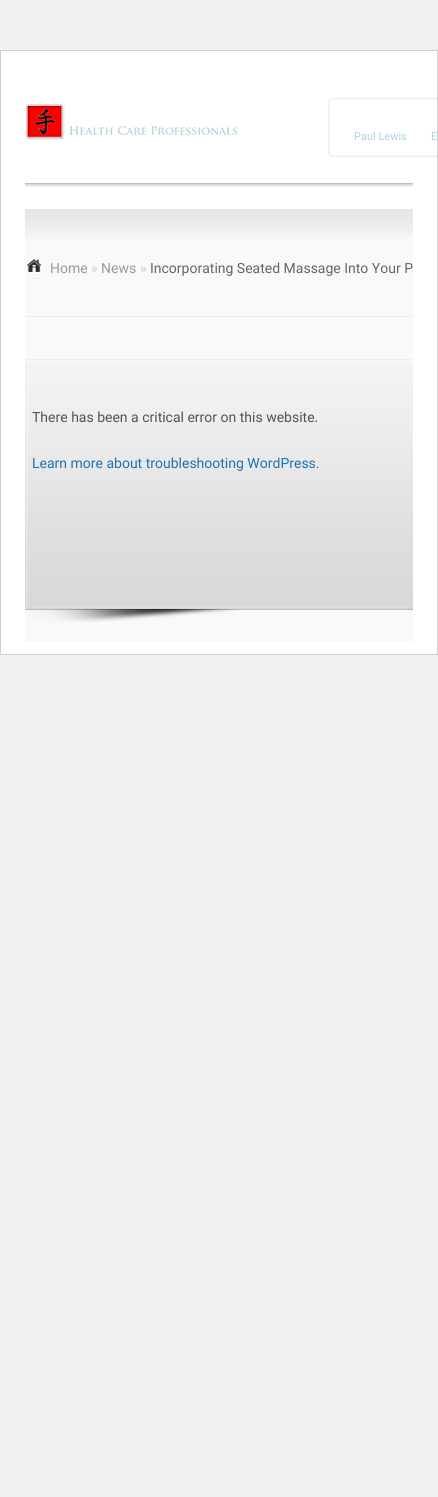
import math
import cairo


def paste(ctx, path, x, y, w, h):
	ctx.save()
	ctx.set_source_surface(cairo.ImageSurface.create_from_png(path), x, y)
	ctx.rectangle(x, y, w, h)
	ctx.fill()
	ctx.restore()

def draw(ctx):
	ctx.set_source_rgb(0.945, 0.945, 0.945)
	ctx.paint()
	ctx.set_source_rgb(1, 1, 1)
	ctx.rectangle(0.5, 50.5, 437, 604)
	ctx.fill_preserve()
	ctx.set_source_rgb(0.8, 0.816, 0.831)
	ctx.set_line_width(1)
	ctx.stroke()
	paste(ctx, 'media/1.png', 26, 104, 211, 36)
	paste(ctx, 'media/2.png', 332, 98, 106, 59)
	paste(ctx, 'media/3.png', 328, 98, 4, 59)
	ctx.select_font_face('Roboto')
	ctx.set_font_size(11)
	ctx.set_source_rgb(0.667, 0.835, 0.863)
	ctx.move_to(354, 140)
	ctx.show_text('Paul Lewis')
	ctx.move_to(431, 140)
	ctx.show_text('E')
	paste(ctx, 'media/4.png', 25, 183, 388, 4)
	ctx.set_source_rgb(0.976, 0.976, 0.976)
	ctx.rectangle(25, 238, 388, 404)
	ctx.fill()
	paste(ctx, 'media/5.png', 25, 208, 388, 30)
	ctx.set_source_rgb(0.929, 0.929, 0.929)
	ctx.rectangle(25, 316, 388, 1)
	ctx.fill()
	paste(ctx, 'media/6.png', 27, 259, 14, 20)
	ctx.set_font_size(14)
	ctx.set_source_rgb(0.6, 0.6, 0.6)
	ctx.move_to(50, 273)
	ctx.show_text('Home')
	ctx.set_source_rgb(0.8, 0.8, 0.8)
	ctx.move_to(91, 273)
	ctx.show_text('»')
	ctx.set_source_rgb(0.6, 0.6, 0.6)
	ctx.move_to(101, 273)
	ctx.show_text('News')
	ctx.set_source_rgb(0.8, 0.8, 0.8)
	ctx.move_to(140, 273)
	ctx.show_text('»')
	ctx.set_source_rgb(0.4, 0.4, 0.4)
	ctx.move_to(150, 273)
	ctx.show_text('Incorporating Seated Massage Into Your P')
	paste(ctx, 'media/7.png', 25, 359, 388, 263)
	ctx.set_source_rgb(0.325, 0.325, 0.325)
	ctx.move_to(32, 422)
	ctx.show_text('There has been a critical error on this website.')
	ctx.set_source_rgb(0.133, 0.443, 0.694)
	ctx.move_to(32, 468)
	ctx.show_text('Learn more about troubleshooting WordPress.')


surface = cairo.ImageSurface(cairo.FORMAT_RGB24, 438, 1497)
ctx = cairo.Context(surface)
options = cairo.FontOptions()
options.set_hint_metrics(cairo.HINT_METRICS_OFF)
options.set_hint_style(cairo.HINT_STYLE_NONE)
ctx.set_font_options(options)
ctx.set_miter_limit(4)
draw(ctx)
surface.write_to_png('image.png')
